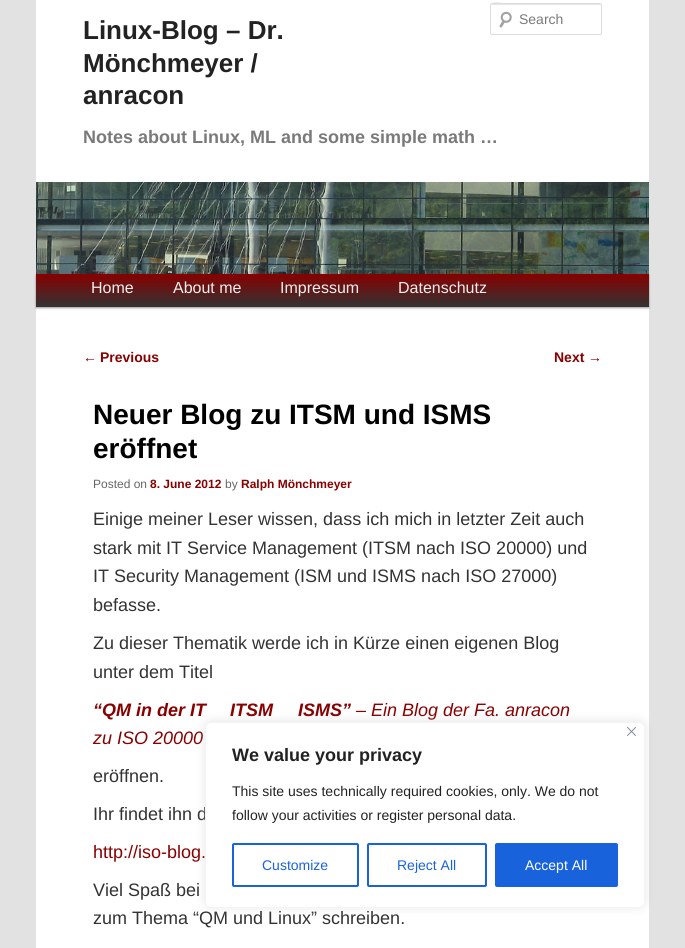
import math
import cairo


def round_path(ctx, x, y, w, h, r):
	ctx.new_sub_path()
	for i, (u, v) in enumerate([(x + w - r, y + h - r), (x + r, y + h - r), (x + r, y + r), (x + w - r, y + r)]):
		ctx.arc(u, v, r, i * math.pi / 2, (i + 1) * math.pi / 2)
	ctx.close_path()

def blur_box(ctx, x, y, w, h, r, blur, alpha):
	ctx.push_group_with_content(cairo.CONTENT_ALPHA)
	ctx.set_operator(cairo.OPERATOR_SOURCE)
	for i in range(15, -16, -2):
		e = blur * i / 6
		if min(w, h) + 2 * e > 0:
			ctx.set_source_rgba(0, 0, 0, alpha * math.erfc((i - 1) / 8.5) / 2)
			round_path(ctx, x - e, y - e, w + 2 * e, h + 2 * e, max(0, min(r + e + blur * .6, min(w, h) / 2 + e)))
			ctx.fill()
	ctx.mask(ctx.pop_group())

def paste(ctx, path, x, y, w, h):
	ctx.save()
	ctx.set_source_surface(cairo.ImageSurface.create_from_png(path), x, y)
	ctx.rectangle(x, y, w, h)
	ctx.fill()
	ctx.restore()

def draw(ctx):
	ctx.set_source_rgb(0.886, 0.886, 0.886)
	ctx.paint()
	ctx.set_source_rgb(1, 1, 1)
	ctx.rectangle(36, 0, 613, 948)
	ctx.fill()
	ctx.select_font_face('Liberation Sans', cairo.FONT_SLANT_NORMAL, cairo.FONT_WEIGHT_BOLD)
	ctx.set_font_size(26)
	ctx.set_source_rgb(0.133, 0.133, 0.133)
	for x, y, s in [
		(83, 39, 'Linux-Blog – Dr.'),
		(83, 72, 'Mönchmeyer /'),
		(83, 104, 'anracon'),
	]:
		ctx.move_to(x, y)
		ctx.show_text(s)
	ctx.set_font_size(18)
	ctx.set_source_rgb(0.478, 0.478, 0.478)
	ctx.move_to(83, 143)
	ctx.show_text('Notes about Linux, ML and some simple math …')
	paste(ctx, 'media/1.png', 499, 11, 13, 17)
	ctx.set_source_rgb(0.902, 0.902, 0.902)
	ctx.new_path()
	ctx.move_to(492, 5)
	ctx.line_to(601, 5)
	ctx.line_to(601, 6)
	ctx.line_to(600, 4)
	ctx.line_to(510, 4)
	ctx.curve_to(506, 4, 491, -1, 491, 6)
	ctx.curve_to(491, 5, 491, 5, 492, 5)
	ctx.close_path()
	ctx.fill()
	round_path(ctx, 490.5, 3.5, 111, 31, 1.5)
	ctx.set_source_rgb(0.867, 0.867, 0.867)
	ctx.set_line_width(1)
	ctx.stroke()
	ctx.select_font_face('Liberation Sans')
	ctx.set_font_size(14)
	ctx.set_source_rgb(0.478, 0.478, 0.478)
	ctx.move_to(519, 24)
	ctx.show_text('Search')
	ctx.set_source_rgb(0, 0, 0)
	blur_box(ctx, 36, 275, 613, 33, 0, 1, 0.4)
	paste(ctx, 'media/2.png', 36, 182, 613, 92)
	gradient = cairo.LinearGradient(343, 274, 343, 307)
	gradient.add_color_stop_rgba(0, 0.533, 0, 0, 1)
	gradient.add_color_stop_rgba(1, 0.2, 0.2, 0.2, 1)
	ctx.set_source(gradient)
	ctx.rectangle(36, 274, 613, 33)
	ctx.fill()
	ctx.set_font_size(16)
	ctx.set_source_rgb(0.933, 0.933, 0.933)
	for x, y, s in [
		(91, 293, 'Home'),
		(173, 293, 'About me'),
		(280, 293, 'Impressum'),
		(398, 293, 'Datenschutz'),
	]:
		ctx.move_to(x, y)
		ctx.show_text(s)
	ctx.set_font_size(14)
	ctx.set_source_rgb(0.533, 0, 0)
	ctx.move_to(83, 362)
	ctx.show_text('←')
	ctx.select_font_face('Liberation Sans', cairo.FONT_SLANT_NORMAL, cairo.FONT_WEIGHT_BOLD)
	ctx.move_to(100, 362)
	ctx.show_text('Previous')
	ctx.move_to(554, 362)
	ctx.show_text('Next')
	ctx.select_font_face('Liberation Sans')
	ctx.move_to(588, 362)
	ctx.show_text('→')
	ctx.select_font_face('Liberation Sans', cairo.FONT_SLANT_NORMAL, cairo.FONT_WEIGHT_BOLD)
	ctx.set_font_size(28)
	ctx.set_source_rgb(0, 0, 0)
	ctx.move_to(93, 424)
	ctx.show_text('Neuer Blog zu ITSM und ISMS')
	ctx.move_to(93, 458)
	ctx.show_text('eröffnet')
	ctx.select_font_face('Liberation Sans')
	ctx.set_font_size(12)
	ctx.set_source_rgb(0.4, 0.4, 0.4)
	ctx.move_to(93, 488)
	ctx.show_text('Posted on')
	ctx.select_font_face('Liberation Sans', cairo.FONT_SLANT_NORMAL, cairo.FONT_WEIGHT_BOLD)
	ctx.set_source_rgb(0.533, 0, 0)
	ctx.move_to(150, 488)
	ctx.show_text('8. June 2012')
	ctx.select_font_face('Liberation Sans')
	ctx.set_source_rgb(0.4, 0.4, 0.4)
	ctx.move_to(225, 488)
	ctx.show_text('by')
	ctx.select_font_face('Liberation Sans', cairo.FONT_SLANT_NORMAL, cairo.FONT_WEIGHT_BOLD)
	ctx.set_source_rgb(0.533, 0, 0)
	ctx.move_to(241, 488)
	ctx.show_text('Ralph Mönchmeyer')
	ctx.select_font_face('Liberation Sans')
	ctx.set_font_size(18)
	ctx.set_source_rgb(0.2, 0.2, 0.2)
	for x, y, s in [
		(93, 525, 'Einige meiner Leser wissen, dass ich mich in letzter Zeit auch'),
		(93, 554, 'stark mit IT Service Management (ITSM nach ISO 20000) und'),
		(93, 582, 'IT Security Management (ISM und ISMS nach ISO 27000)'),
		(93, 611, 'befasse.'),
		(93, 649, 'Zu dieser Thematik werde ich in Kürze einen eigenen Blog'),
		(93, 678, 'unter dem Titel'),
	]:
		ctx.move_to(x, y)
		ctx.show_text(s)
	ctx.select_font_face('Liberation Sans', cairo.FONT_SLANT_ITALIC, cairo.FONT_WEIGHT_BOLD)
	ctx.set_source_rgb(0.533, 0, 0)
	for x, y, s in [
		(93, 716, '“QM in der IT'),
		(230, 716, 'ITSM'),
		(298, 716, 'ISMS”'),
	]:
		ctx.move_to(x, y)
		ctx.show_text(s)
	ctx.select_font_face('Liberation Sans', cairo.FONT_SLANT_ITALIC)
	ctx.move_to(356, 716)
	ctx.show_text('– Ein Blog der Fa. anracon')
	ctx.move_to(93, 744)
	ctx.show_text('zu ISO 20000')
	ctx.select_font_face('Liberation Sans')
	ctx.set_source_rgb(0.2, 0.2, 0.2)
	ctx.move_to(93, 782)
	ctx.show_text('eröffnen.')
	ctx.move_to(93, 820)
	ctx.show_text('Ihr findet ihn d')
	ctx.set_source_rgb(0.533, 0, 0)
	ctx.move_to(93, 858)
	ctx.show_text('http://iso-blog.')
	ctx.set_source_rgb(0.2, 0.2, 0.2)
	ctx.move_to(93, 896)
	ctx.show_text('Viel Spaß bei')
	ctx.move_to(93, 924)
	ctx.show_text('zum Thema “QM und Linux” schreiben.')
	ctx.set_source_rgb(0.675, 0.671, 0.671)
	blur_box(ctx, 205, 721, 440, 186, 6, 5, 0.3)
	ctx.set_source_rgb(1, 1, 1)
	round_path(ctx, 205.5, 722.5, 439, 185, 5.5)
	ctx.fill_preserve()
	ctx.set_source_rgb(0.957, 0.957, 0.957)
	ctx.stroke()
	paste(ctx, 'media/3.png', 627, 727, 9, 9)
	ctx.select_font_face('Liberation Sans', cairo.FONT_SLANT_NORMAL, cairo.FONT_WEIGHT_BOLD)
	ctx.set_source_rgb(0.133, 0.133, 0.133)
	ctx.move_to(232, 761)
	ctx.show_text('We value your privacy')
	ctx.select_font_face('Liberation Sans')
	ctx.set_font_size(14)
	ctx.move_to(232, 796)
	ctx.show_text('This site uses technically required cookies, only. We do not')
	ctx.move_to(232, 820)
	ctx.show_text('follow your activities or register personal data.')
	round_path(ctx, 233, 844, 125, 42, 1)
	ctx.set_source_rgb(0.094, 0.388, 0.863)
	ctx.set_line_width(2)
	ctx.stroke()
	ctx.move_to(262, 870)
	ctx.show_text('Customize')
	round_path(ctx, 368, 844, 118, 42, 1)
	ctx.stroke()
	ctx.move_to(397, 870)
	ctx.show_text('Reject All')
	round_path(ctx, 496, 844, 121, 42, 1)
	ctx.fill_preserve()
	ctx.stroke()
	ctx.set_source_rgb(1, 1, 1)
	ctx.move_to(525, 870)
	ctx.show_text('Accept All')


surface = cairo.ImageSurface(cairo.FORMAT_RGB24, 685, 948)
ctx = cairo.Context(surface)
options = cairo.FontOptions()
options.set_hint_metrics(cairo.HINT_METRICS_OFF)
options.set_hint_style(cairo.HINT_STYLE_NONE)
ctx.set_font_options(options)
ctx.set_miter_limit(4)
draw(ctx)
surface.write_to_png('image.png')
